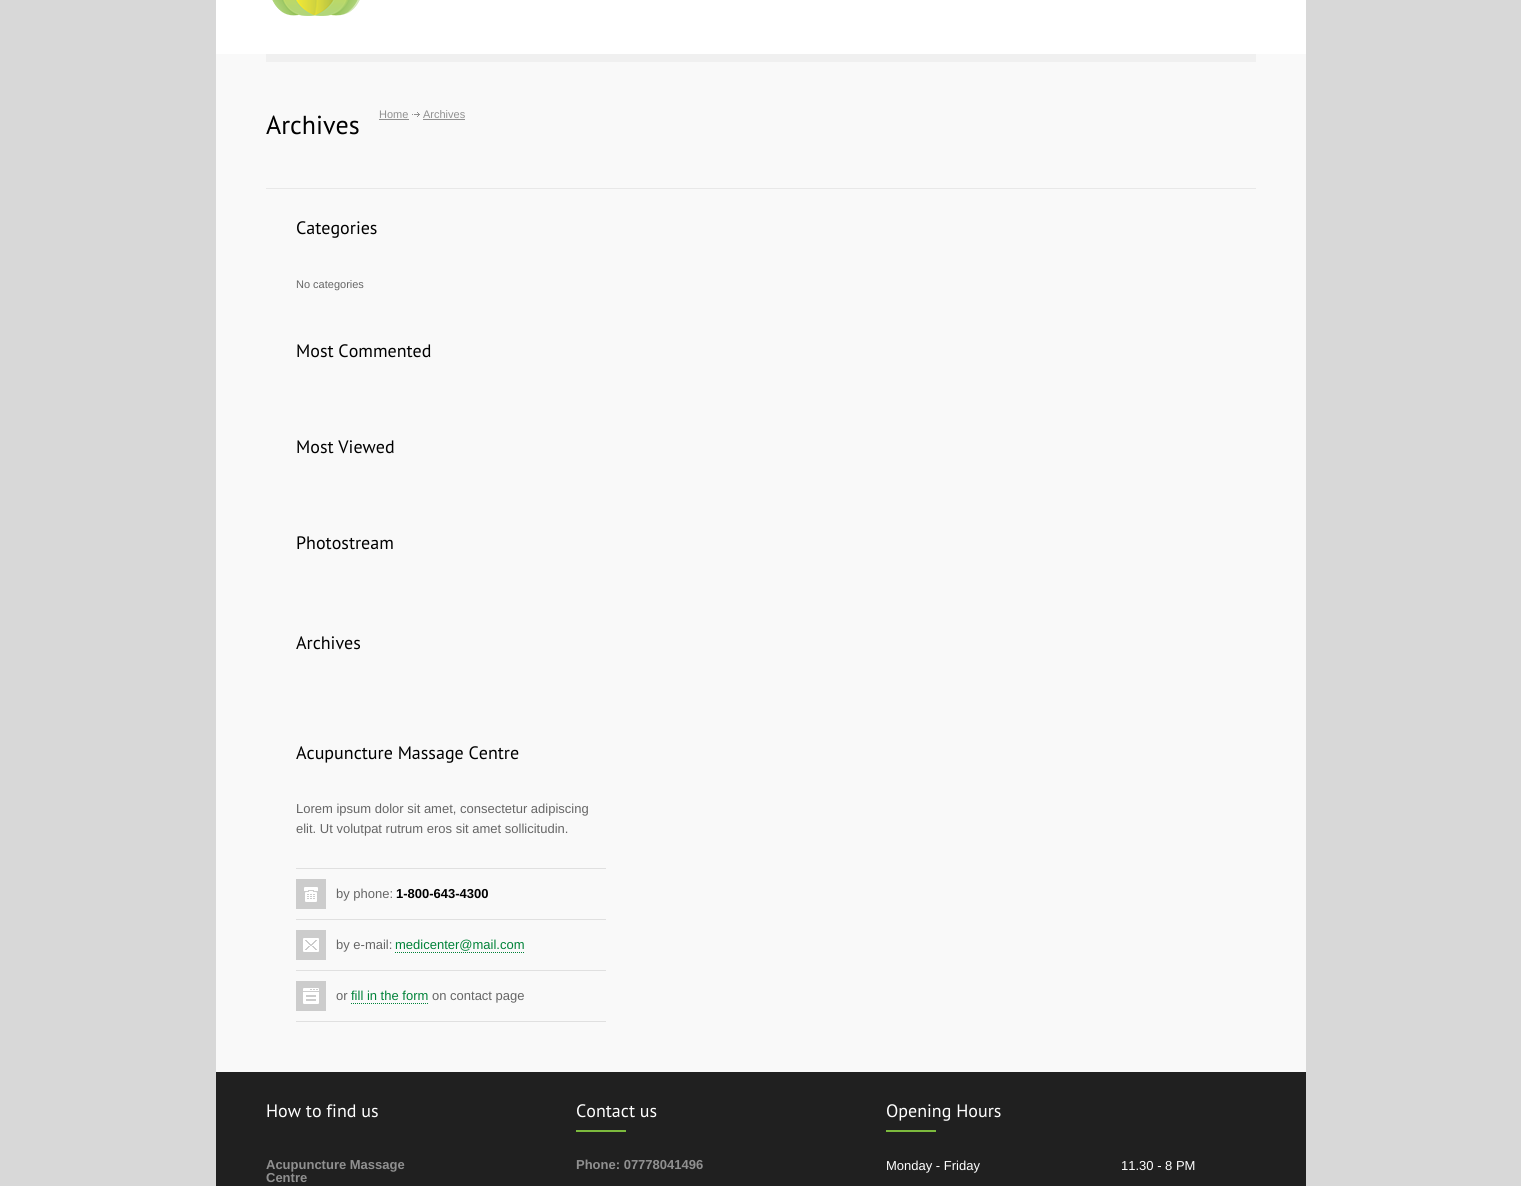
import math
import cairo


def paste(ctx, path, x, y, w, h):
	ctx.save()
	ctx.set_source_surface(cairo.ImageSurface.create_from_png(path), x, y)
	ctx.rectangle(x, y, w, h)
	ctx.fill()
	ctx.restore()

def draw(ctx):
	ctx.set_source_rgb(0.847, 0.847, 0.847)
	ctx.paint()
	ctx.set_source_rgb(0.973, 0.973, 0.973)
	ctx.rectangle(216, 54, 1090, 1018)
	ctx.fill()
	ctx.set_source_rgb(1, 1, 1)
	ctx.rectangle(216, 0, 1090, 54)
	ctx.fill()
	paste(ctx, 'media/1.png', 272, 0, 88, 16)
	ctx.set_source_rgb(0.941, 0.941, 0.941)
	ctx.rectangle(266, 54, 990, 8)
	ctx.fill()
	ctx.set_source_rgb(0.91, 0.91, 0.91)
	ctx.rectangle(266, 188, 990, 1)
	ctx.fill()
	ctx.select_font_face('PT Sans')
	ctx.set_font_size(26)
	ctx.set_source_rgb(0, 0, 0)
	ctx.move_to(266, 134)
	ctx.show_text('Archives')
	ctx.select_font_face('Liberation Sans')
	ctx.set_font_size(11)
	ctx.set_source_rgb(0.565, 0.565, 0.565)
	ctx.move_to(379, 118)
	ctx.show_text('Home')
	ctx.rectangle(379, 119, 30, 1)
	ctx.fill()
	paste(ctx, 'media/2.png', 412, 112, 8, 5)
	ctx.move_to(423, 118)
	ctx.show_text('Archives')
	ctx.rectangle(423, 119, 42, 1)
	ctx.fill()
	ctx.select_font_face('PT Sans')
	ctx.set_font_size(18)
	ctx.set_source_rgb(0, 0, 0)
	ctx.move_to(296, 234)
	ctx.show_text('Categories')
	ctx.select_font_face('Liberation Sans')
	ctx.set_font_size(11)
	ctx.set_source_rgb(0.4, 0.4, 0.4)
	ctx.move_to(296, 288)
	ctx.show_text('No categories')
	ctx.select_font_face('PT Sans')
	ctx.set_font_size(18)
	ctx.set_source_rgb(0, 0, 0)
	for x, y, s in [
		(296, 357, 'Most Commented'),
		(296, 453, 'Most Viewed'),
		(296, 549, 'Photostream'),
		(296, 649, 'Archives'),
		(296, 759, 'Acupuncture Massage Centre'),
	]:
		ctx.move_to(x, y)
		ctx.show_text(s)
	ctx.select_font_face('Liberation Sans')
	ctx.set_font_size(13)
	ctx.set_source_rgb(0.4, 0.4, 0.4)
	ctx.move_to(296, 813)
	ctx.show_text('Lorem ipsum dolor sit amet, consectetur adipiscing')
	ctx.move_to(296, 833)
	ctx.show_text('elit. Ut volutpat rutrum eros sit amet sollicitudin.')
	ctx.set_source_rgb(0.878, 0.878, 0.878)
	ctx.rectangle(296, 868, 310, 1)
	ctx.fill()
	ctx.rectangle(296, 919, 310, 1)
	ctx.fill()
	paste(ctx, 'media/3.png', 296, 879, 30, 30)
	ctx.set_source_rgb(0.4, 0.4, 0.4)
	ctx.move_to(336, 898)
	ctx.show_text('by phone:')
	ctx.select_font_face('Liberation Sans', cairo.FONT_SLANT_NORMAL, cairo.FONT_WEIGHT_BOLD)
	ctx.set_source_rgb(0, 0, 0)
	ctx.move_to(396, 898)
	ctx.show_text('1-800-643-4300')
	ctx.set_source_rgb(0.878, 0.878, 0.878)
	ctx.rectangle(296, 970, 310, 1)
	ctx.fill()
	paste(ctx, 'media/4.png', 296, 930, 30, 30)
	ctx.select_font_face('Liberation Sans')
	ctx.set_source_rgb(0.4, 0.4, 0.4)
	ctx.move_to(336, 949)
	ctx.show_text('by e-mail:')
	ctx.set_source_rgb(0, 0.51, 0.22)
	ctx.move_to(395, 949)
	ctx.show_text('medicenter@mail.com')
	ctx.new_path()
	ctx.move_to(395, 952.5)
	ctx.line_to(525, 952.5)
	ctx.set_line_width(1)
	ctx.set_dash([1, 1])
	ctx.stroke()
	ctx.set_source_rgb(0.878, 0.878, 0.878)
	ctx.rectangle(296, 1021, 310, 1)
	ctx.fill()
	paste(ctx, 'media/5.png', 296, 981, 30, 30)
	ctx.set_source_rgb(0.4, 0.4, 0.4)
	ctx.move_to(336, 1000)
	ctx.show_text('or')
	ctx.set_source_rgb(0, 0.51, 0.22)
	ctx.move_to(351, 1000)
	ctx.show_text('fill in the form')
	ctx.new_path()
	ctx.move_to(351, 1003.5)
	ctx.line_to(428, 1003.5)
	ctx.stroke()
	ctx.set_source_rgb(0.4, 0.4, 0.4)
	ctx.move_to(432, 1000)
	ctx.show_text('on contact page')
	ctx.set_source_rgb(0.125, 0.125, 0.125)
	ctx.rectangle(216, 1072, 1090, 114)
	ctx.fill()
	ctx.select_font_face('PT Sans')
	ctx.set_font_size(18)
	ctx.set_source_rgb(1, 1, 1)
	ctx.move_to(266, 1117)
	ctx.show_text('How to find us')
	ctx.select_font_face('Liberation Sans', cairo.FONT_SLANT_NORMAL, cairo.FONT_WEIGHT_BOLD)
	ctx.set_font_size(13)
	ctx.set_source_rgb(0.565, 0.565, 0.565)
	ctx.move_to(266, 1169)
	ctx.show_text('Acupuncture Massage')
	ctx.move_to(266, 1182)
	ctx.show_text('Centre')
	ctx.select_font_face('PT Sans')
	ctx.set_font_size(18)
	ctx.set_source_rgb(1, 1, 1)
	ctx.move_to(576, 1117)
	ctx.show_text('Contact us')
	ctx.set_source_rgb(0.486, 0.729, 0.239)
	ctx.rectangle(576, 1130, 50, 2)
	ctx.fill()
	ctx.select_font_face('Liberation Sans', cairo.FONT_SLANT_NORMAL, cairo.FONT_WEIGHT_BOLD)
	ctx.set_font_size(13)
	ctx.set_source_rgb(0.565, 0.565, 0.565)
	ctx.move_to(576, 1169)
	ctx.show_text('Phone: 07778041496')
	ctx.select_font_face('PT Sans')
	ctx.set_font_size(18)
	ctx.set_source_rgb(1, 1, 1)
	ctx.move_to(886, 1117)
	ctx.show_text('Opening Hours')
	ctx.set_source_rgb(0.486, 0.729, 0.239)
	ctx.rectangle(886, 1130, 50, 2)
	ctx.fill()
	ctx.select_font_face('Liberation Sans')
	ctx.set_font_size(13)
	ctx.set_source_rgb(1, 1, 1)
	ctx.move_to(886, 1170)
	ctx.show_text('Monday - Friday')
	ctx.move_to(1121, 1170)
	ctx.show_text('11.30 - 8 PM')


surface = cairo.ImageSurface(cairo.FORMAT_RGB24, 1521, 1186)
ctx = cairo.Context(surface)
options = cairo.FontOptions()
options.set_hint_metrics(cairo.HINT_METRICS_OFF)
options.set_hint_style(cairo.HINT_STYLE_NONE)
ctx.set_font_options(options)
ctx.set_miter_limit(4)
draw(ctx)
surface.write_to_png('image.png')
